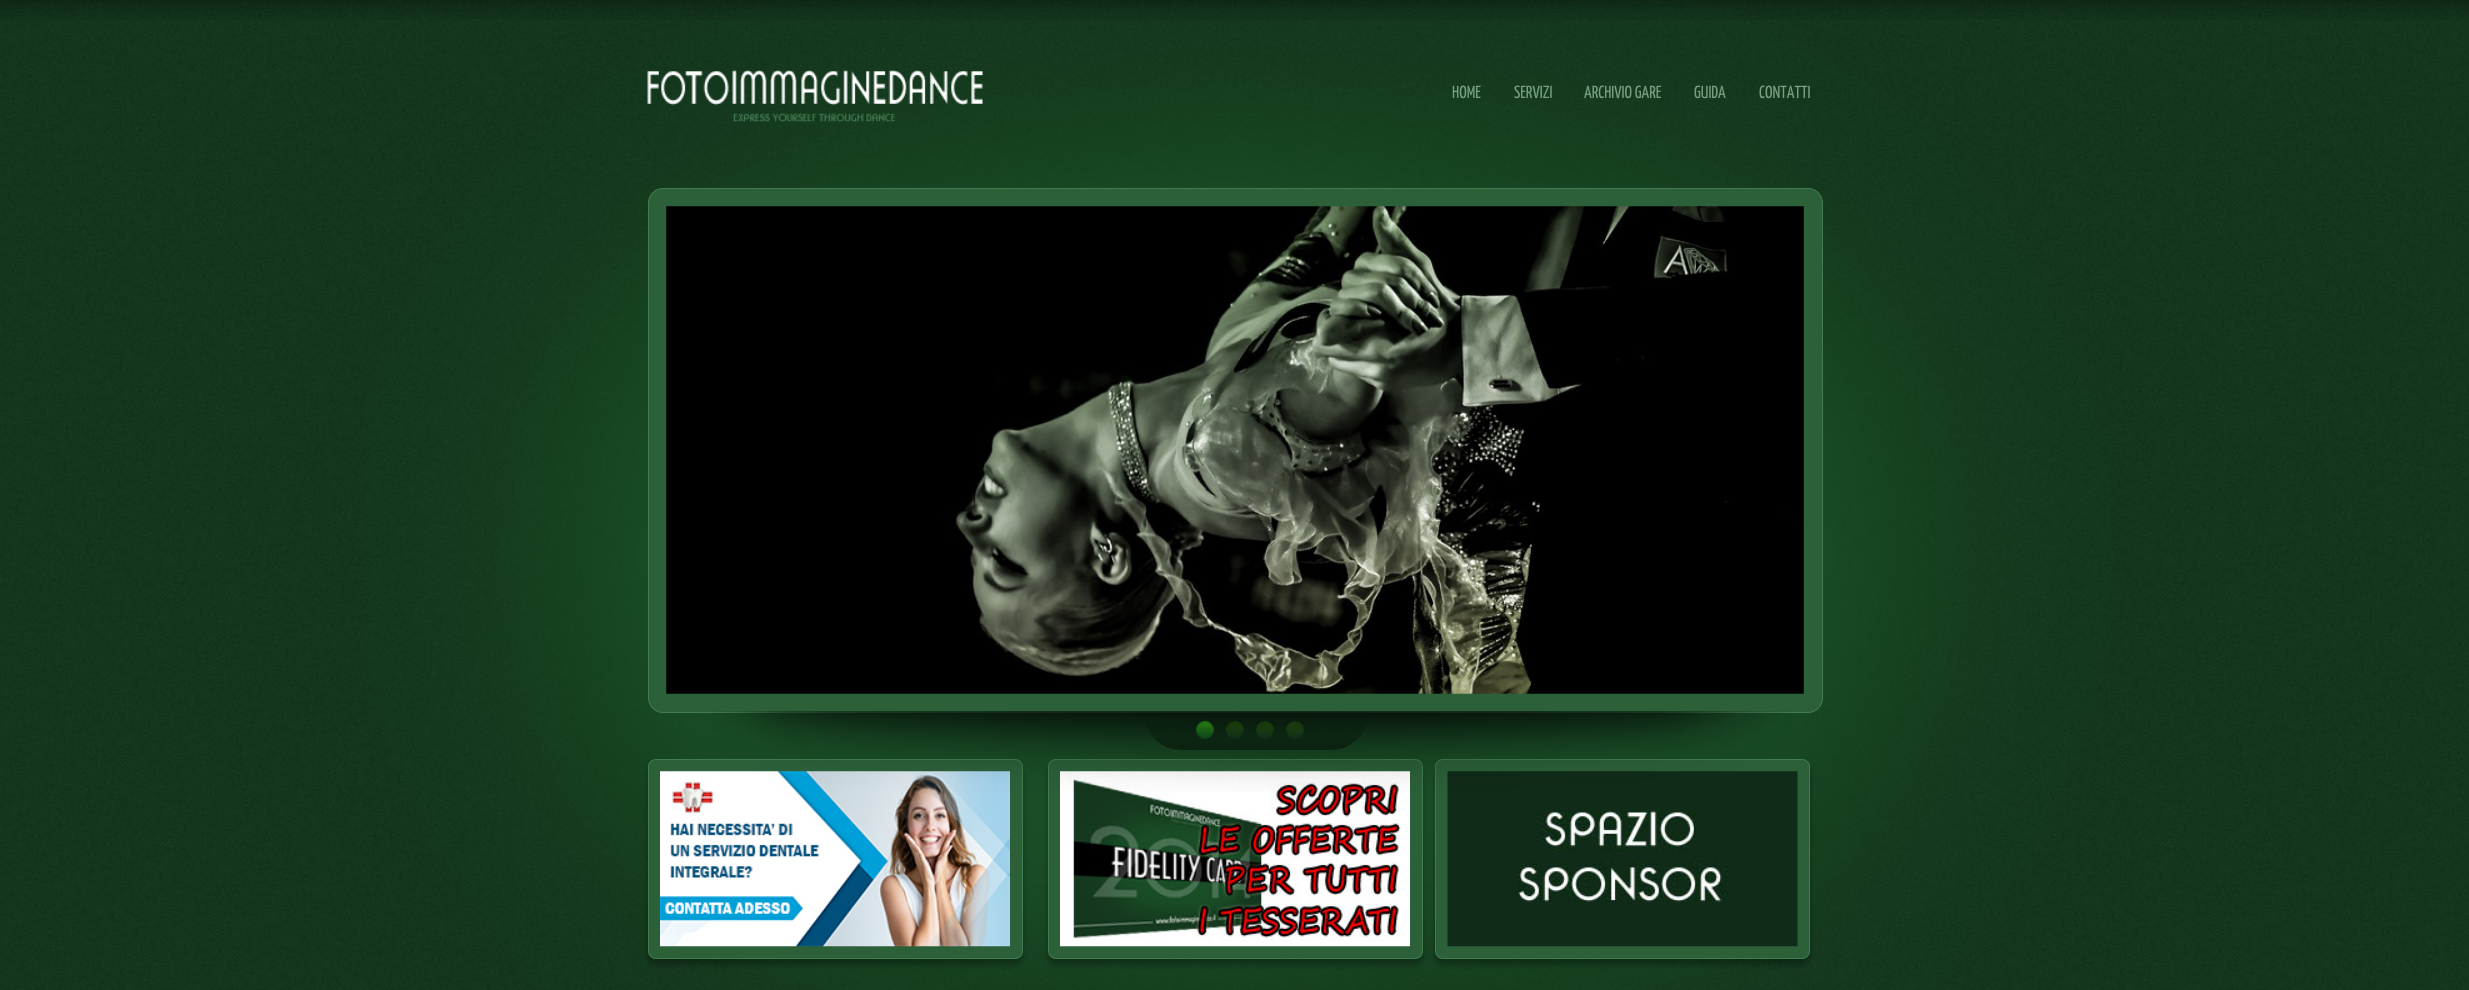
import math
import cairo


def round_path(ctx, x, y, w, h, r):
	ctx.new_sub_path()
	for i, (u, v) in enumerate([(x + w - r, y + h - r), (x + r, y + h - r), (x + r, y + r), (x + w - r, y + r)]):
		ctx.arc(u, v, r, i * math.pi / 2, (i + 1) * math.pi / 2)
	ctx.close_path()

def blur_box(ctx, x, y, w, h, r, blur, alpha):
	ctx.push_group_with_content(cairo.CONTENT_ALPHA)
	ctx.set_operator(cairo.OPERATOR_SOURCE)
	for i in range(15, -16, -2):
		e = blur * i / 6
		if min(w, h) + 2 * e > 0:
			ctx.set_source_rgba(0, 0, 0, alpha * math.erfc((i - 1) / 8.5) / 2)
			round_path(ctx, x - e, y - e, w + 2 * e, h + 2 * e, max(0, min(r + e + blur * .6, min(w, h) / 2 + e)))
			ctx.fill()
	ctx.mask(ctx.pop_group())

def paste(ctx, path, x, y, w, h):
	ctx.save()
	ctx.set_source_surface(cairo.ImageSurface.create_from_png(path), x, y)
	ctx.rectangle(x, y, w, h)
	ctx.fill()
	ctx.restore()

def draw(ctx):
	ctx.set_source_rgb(1, 1, 1)
	ctx.paint()
	paste(ctx, 'media/1.png', 0, 0, 2469, 990)
	paste(ctx, 'media/2.png', 360, 0, 1750, 990)
	paste(ctx, 'media/3.png', 0, 0, 2469, 20)
	paste(ctx, 'media/4.png', 647, 70, 336, 52)
	ctx.select_font_face('Yanone Kaffeesatz ExtraLight')
	ctx.set_font_size(17.5)
	ctx.set_source_rgb(0.467, 0.627, 0.506)
	for x, y, s in [
		(1452, 98, 'HOME'),
		(1514, 98, 'SERVIZI'),
		(1584, 98, 'ARCHIVIO GARE'),
		(1694, 98, 'GUIDA'),
		(1759, 98, 'CONTATTI'),
	]:
		ctx.move_to(x, y)
		ctx.show_text(s)
	ctx.set_source_rgb(0.169, 0.376, 0.224)
	round_path(ctx, 648.5, 188.5, 1174, 524, 14.5)
	ctx.fill_preserve()
	ctx.set_source_rgb(0.259, 0.486, 0.318)
	ctx.set_line_width(1)
	ctx.stroke()
	paste(ctx, 'media/5.png', 666, 206, 1138, 488)
	ctx.set_source_rgb(0, 0, 0)
	blur_box(ctx, 648, 765, 375, 200, 8, 3, 0.3)
	ctx.set_source_rgb(0.169, 0.376, 0.224)
	round_path(ctx, 648.5, 759.5, 374, 199, 7.5)
	ctx.fill_preserve()
	ctx.set_source_rgb(0.259, 0.486, 0.318)
	ctx.stroke()
	paste(ctx, 'media/12.png', 660, 771, 350, 176)
	ctx.set_source_rgb(0, 0, 0)
	blur_box(ctx, 1048, 765, 375, 200, 8, 3, 0.3)
	ctx.set_source_rgb(0.169, 0.376, 0.224)
	round_path(ctx, 1048.5, 759.5, 374, 199, 7.5)
	ctx.fill_preserve()
	ctx.set_source_rgb(0.259, 0.486, 0.318)
	ctx.stroke()
	paste(ctx, 'media/13.png', 1060, 771, 350, 176)
	ctx.set_source_rgb(0, 0, 0)
	blur_box(ctx, 1435, 765, 375, 200, 8, 3, 0.3)
	ctx.set_source_rgb(0.169, 0.376, 0.224)
	round_path(ctx, 1435.5, 759.5, 374, 199, 7.5)
	ctx.fill_preserve()
	ctx.set_source_rgb(0.259, 0.486, 0.318)
	ctx.stroke()
	paste(ctx, 'media/14.png', 1447, 771, 351, 176)
	paste(ctx, 'media/6.png', 711, 711, 1081, 81)
	paste(ctx, 'media/7.png', 1147, 723, 218, 27)
	paste(ctx, 'media/8.png', 1196, 721, 18, 18)
	paste(ctx, 'media/9.png', 1226, 721, 18, 18)
	paste(ctx, 'media/10.png', 1256, 721, 18, 18)
	paste(ctx, 'media/11.png', 1286, 721, 18, 18)


surface = cairo.ImageSurface(cairo.FORMAT_RGB24, 2469, 990)
ctx = cairo.Context(surface)
options = cairo.FontOptions()
options.set_hint_metrics(cairo.HINT_METRICS_OFF)
options.set_hint_style(cairo.HINT_STYLE_NONE)
ctx.set_font_options(options)
ctx.set_miter_limit(4)
draw(ctx)
surface.write_to_png('image.png')
